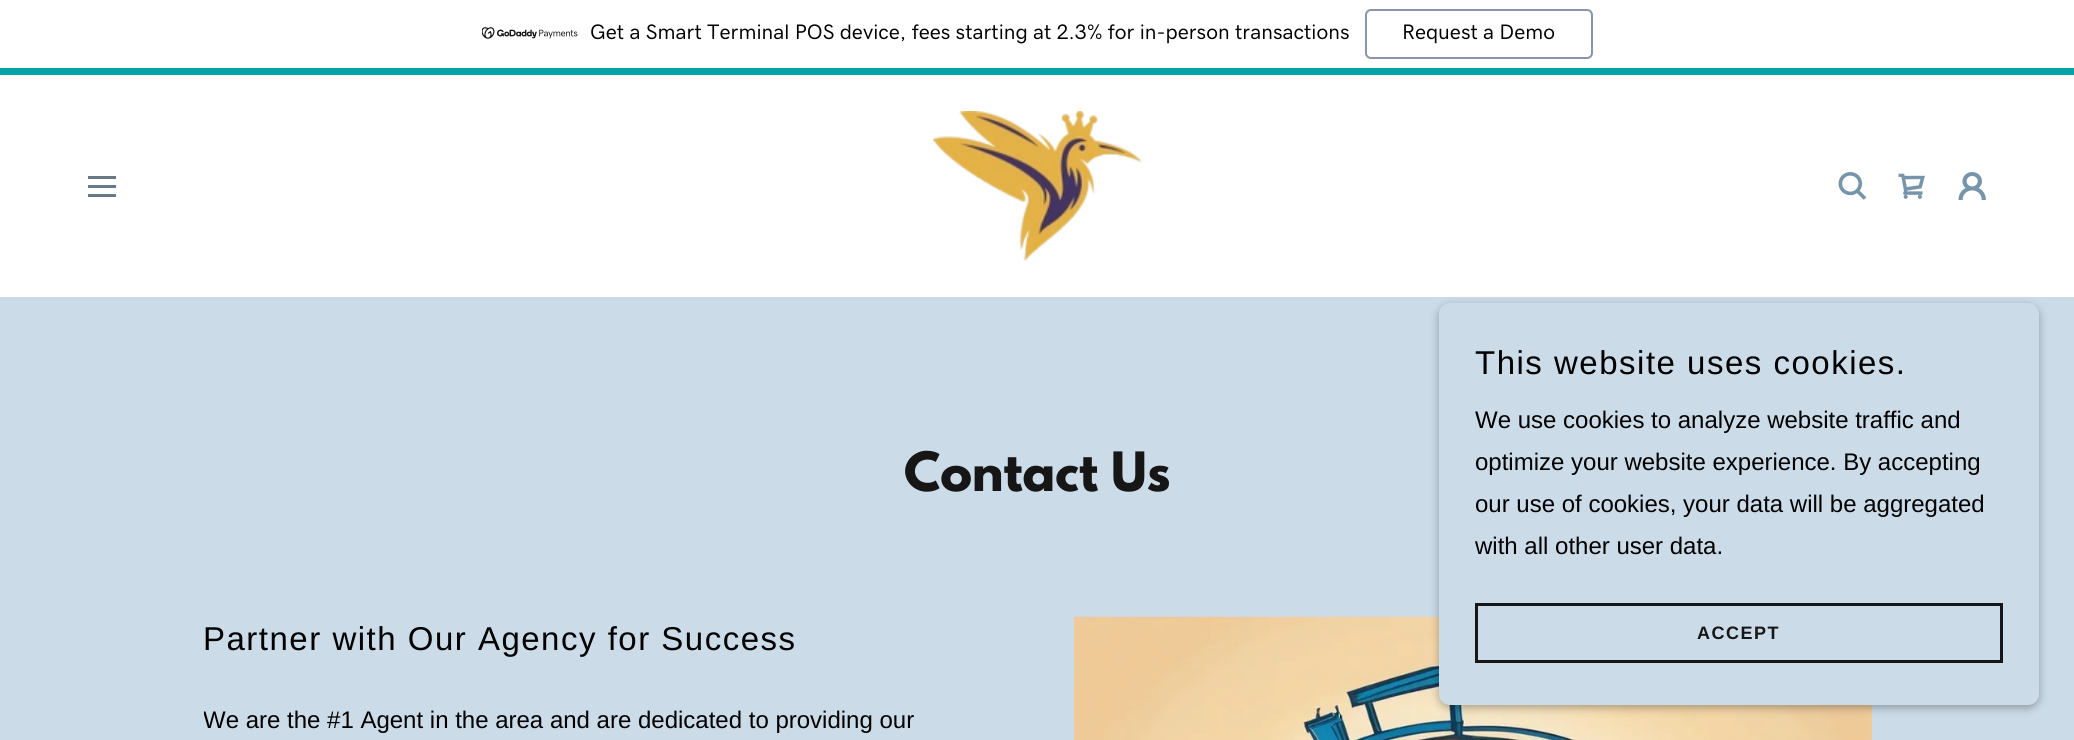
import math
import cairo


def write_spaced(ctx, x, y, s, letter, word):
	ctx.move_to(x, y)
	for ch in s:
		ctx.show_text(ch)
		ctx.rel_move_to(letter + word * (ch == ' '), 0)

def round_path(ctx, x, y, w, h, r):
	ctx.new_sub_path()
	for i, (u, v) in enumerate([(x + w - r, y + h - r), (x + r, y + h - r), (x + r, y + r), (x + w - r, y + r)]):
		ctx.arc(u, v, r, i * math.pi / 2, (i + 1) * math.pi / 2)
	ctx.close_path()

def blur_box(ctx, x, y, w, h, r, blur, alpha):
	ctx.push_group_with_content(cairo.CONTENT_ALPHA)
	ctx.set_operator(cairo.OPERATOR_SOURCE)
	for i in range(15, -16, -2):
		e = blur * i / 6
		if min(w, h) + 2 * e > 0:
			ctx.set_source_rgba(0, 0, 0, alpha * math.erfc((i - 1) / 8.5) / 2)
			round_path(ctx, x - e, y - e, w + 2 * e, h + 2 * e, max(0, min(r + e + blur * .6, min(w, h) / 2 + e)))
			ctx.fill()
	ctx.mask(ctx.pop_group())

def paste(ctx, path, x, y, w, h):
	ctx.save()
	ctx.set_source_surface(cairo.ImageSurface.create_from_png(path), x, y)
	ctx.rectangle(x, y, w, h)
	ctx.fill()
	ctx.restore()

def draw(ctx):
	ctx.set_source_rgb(0.796, 0.859, 0.91)
	ctx.paint()
	ctx.set_source_rgb(1, 1, 1)
	ctx.rectangle(0, 0, 2074, 68)
	ctx.fill()
	ctx.set_source_rgb(0, 0.643, 0.651)
	ctx.rectangle(0, 68, 2074, 7)
	ctx.fill()
	paste(ctx, 'media/1.png', 482, 27, 96, 12)
	ctx.select_font_face('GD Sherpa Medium')
	ctx.set_font_size(21)
	ctx.set_source_rgb(0, 0, 0)
	ctx.move_to(590, 39)
	ctx.show_text('Get a Smart Terminal POS device, fees starting at 2.3% for in-person transactions')
	round_path(ctx, 1366, 10, 226, 48, 5)
	ctx.set_source_rgb(0.537, 0.584, 0.663)
	ctx.stroke()
	ctx.set_source_rgb(0, 0, 0)
	ctx.move_to(1402, 39)
	ctx.show_text('Request a Demo')
	ctx.set_source_rgb(1, 1, 1)
	ctx.rectangle(0, 75, 2074, 222)
	ctx.fill()
	ctx.set_source_rgb(0.404, 0.475, 0.529)
	ctx.rectangle(88, 176, 28, 3)
	ctx.rectangle(88, 185, 28, 3)
	ctx.rectangle(88, 194, 28, 3)
	ctx.fill()
	paste(ctx, 'media/2.png', 933, 111, 209, 150)
	paste(ctx, 'media/3.png', 1838, 172, 29, 28)
	paste(ctx, 'media/4.png', 1898, 173, 27, 26)
	paste(ctx, 'media/5.png', 1958, 172, 28, 28)
	ctx.select_font_face('League Spartan', cairo.FONT_SLANT_NORMAL, cairo.FONT_WEIGHT_BOLD)
	ctx.set_font_size(48)
	ctx.set_source_rgb(0.086, 0.086, 0.086)
	ctx.move_to(904, 491)
	ctx.show_text('Contact Us')
	ctx.select_font_face('Liberation Sans')
	ctx.set_font_size(33)
	ctx.set_source_rgb(0, 0, 0)
	write_spaced(ctx, 203, 650, 'Partner with Our Agency for Success', 1.5, 0)
	ctx.save()
	ctx.rectangle(204, 617, 1668, 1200)
	ctx.clip()
	ctx.set_font_size(24)
	ctx.move_to(203, 728)
	ctx.show_text('We are the #1 Agent in the area and are dedicated to providing our')
	ctx.restore()
	paste(ctx, 'media/6.png', 1074, 616, 798, 124)
	ctx.set_source_rgb(0, 0, 0)
	blur_box(ctx, 1439, 306, 600, 402, 11, 4.5, 0.3)
	ctx.set_source_rgb(0.796, 0.859, 0.91)
	round_path(ctx, 1439, 303, 600, 402, 11)
	ctx.fill()
	ctx.set_source_rgb(0, 0, 0)
	write_spaced(ctx, 1475, 374, 'This website uses cookies.', 1.5, 0)
	ctx.set_font_size(24)
	for x, y, s in [
		(1475, 428, 'We use cookies to analyze website traffic and'),
		(1475, 470, 'optimize your website experience. By accepting'),
		(1475, 512, 'our use of cookies, your data will be aggregated'),
		(1475, 554, 'with all other user data.'),
	]:
		ctx.move_to(x, y)
		ctx.show_text(s)
	ctx.rectangle(1476.5, 604.5, 525, 57)
	ctx.set_source_rgb(0.086, 0.086, 0.086)
	ctx.set_line_width(3)
	ctx.stroke()
	ctx.select_font_face('Liberation Sans', cairo.FONT_SLANT_NORMAL, cairo.FONT_WEIGHT_BOLD)
	ctx.set_font_size(18)
	write_spaced(ctx, 1697, 639, 'ACCEPT', 1.5, 0)


surface = cairo.ImageSurface(cairo.FORMAT_RGB24, 2074, 740)
ctx = cairo.Context(surface)
options = cairo.FontOptions()
options.set_hint_metrics(cairo.HINT_METRICS_OFF)
options.set_hint_style(cairo.HINT_STYLE_NONE)
ctx.set_font_options(options)
ctx.set_miter_limit(4)
draw(ctx)
surface.write_to_png('image.png')
